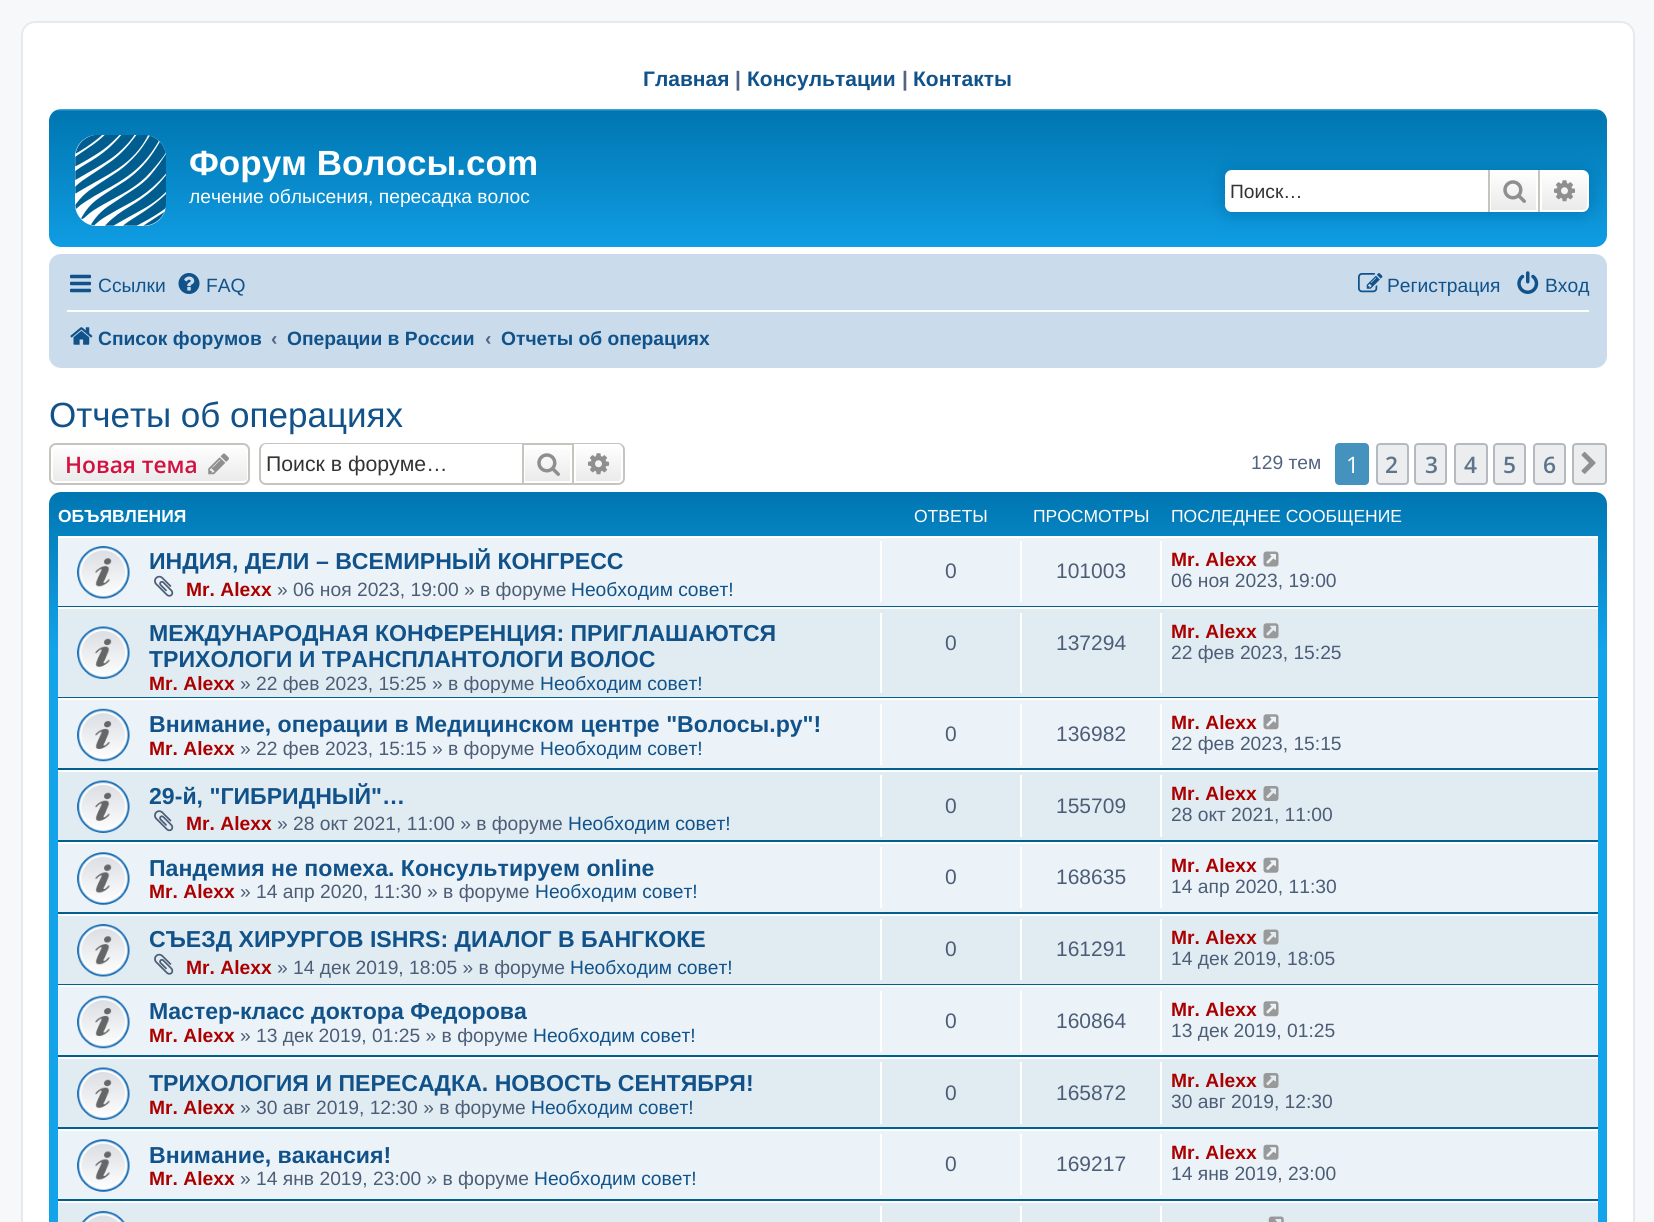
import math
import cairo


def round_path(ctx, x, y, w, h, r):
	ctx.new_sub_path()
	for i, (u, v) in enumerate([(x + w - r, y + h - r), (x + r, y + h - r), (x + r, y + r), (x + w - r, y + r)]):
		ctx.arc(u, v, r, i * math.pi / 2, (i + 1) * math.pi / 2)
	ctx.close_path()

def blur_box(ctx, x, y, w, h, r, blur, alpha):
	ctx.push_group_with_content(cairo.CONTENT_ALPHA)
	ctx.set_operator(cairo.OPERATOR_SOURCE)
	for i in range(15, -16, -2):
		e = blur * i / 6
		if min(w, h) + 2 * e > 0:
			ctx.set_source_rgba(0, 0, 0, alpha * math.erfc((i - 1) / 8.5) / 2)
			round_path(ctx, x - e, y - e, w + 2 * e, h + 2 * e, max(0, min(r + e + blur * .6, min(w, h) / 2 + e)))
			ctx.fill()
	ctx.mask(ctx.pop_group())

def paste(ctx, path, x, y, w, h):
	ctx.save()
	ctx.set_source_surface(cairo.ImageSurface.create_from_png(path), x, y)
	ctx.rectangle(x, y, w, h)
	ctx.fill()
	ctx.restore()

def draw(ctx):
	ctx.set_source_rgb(0.961, 0.969, 0.98)
	ctx.paint()
	ctx.set_source_rgb(1, 1, 1)
	round_path(ctx, 22, 22, 1612, 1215, 13)
	ctx.fill_preserve()
	ctx.set_source_rgb(0.902, 0.914, 0.929)
	ctx.stroke()
	ctx.select_font_face('Liberation Sans', cairo.FONT_SLANT_NORMAL, cairo.FONT_WEIGHT_BOLD)
	ctx.set_font_size(21)
	ctx.set_source_rgb(0.063, 0.322, 0.537)
	ctx.move_to(643, 86)
	ctx.show_text('Главная')
	ctx.set_source_rgb(0.325, 0.392, 0.51)
	ctx.move_to(735, 86)
	ctx.show_text('|')
	ctx.set_source_rgb(0.063, 0.322, 0.537)
	ctx.move_to(747, 86)
	ctx.show_text('Консультации')
	ctx.set_source_rgb(0.325, 0.392, 0.51)
	ctx.move_to(902, 86)
	ctx.show_text('|')
	ctx.set_source_rgb(0.063, 0.322, 0.537)
	ctx.move_to(913, 86)
	ctx.show_text('Контакты')
	gradient = cairo.LinearGradient(828, 108, 828, 269)
	gradient.add_color_stop_rgba(0, 0.416, 0.808, 1, 1)
	gradient.add_color_stop_rgba(0.02, 0, 0.463, 0.694, 1)
	gradient.add_color_stop_rgba(1, 0.071, 0.639, 0.922, 1)
	ctx.set_source(gradient)
	round_path(ctx, 49, 109, 1558, 138, 12)
	ctx.fill()
	paste(ctx, 'media/1.png', 75, 135, 91, 91)
	ctx.set_font_size(35)
	ctx.set_source_rgb(1, 1, 1)
	ctx.move_to(189, 175)
	ctx.show_text('Форум Волосы.com')
	ctx.select_font_face('Liberation Sans')
	ctx.set_font_size(19.25)
	ctx.move_to(189, 203)
	ctx.show_text('лечение облысения, пересадка волос')
	ctx.set_source_rgb(0, 0.459, 0.69)
	blur_box(ctx, 1225, 170, 364, 42, 7, 9, 1)
	ctx.set_source_rgb(1, 1, 1)
	ctx.new_path()
	ctx.move_to(1232, 170)
	ctx.line_to(1488, 170)
	ctx.line_to(1488, 212)
	ctx.line_to(1232, 212)
	ctx.curve_to(1228, 212, 1225, 209, 1225, 205)
	ctx.line_to(1225, 177)
	ctx.curve_to(1225, 173, 1228, 170, 1232, 170)
	ctx.close_path()
	ctx.fill()
	ctx.set_source_rgb(0.2, 0.2, 0.2)
	ctx.move_to(1230, 198)
	ctx.show_text('Поиск…')
	gradient = cairo.LinearGradient(1514, 170, 1514, 212)
	gradient.add_color_stop_rgba(0, 1, 1, 1, 1)
	gradient.add_color_stop_rgba(1, 0.914, 0.914, 0.914, 1)
	ctx.set_source(gradient)
	ctx.rectangle(1491, 172, 45, 38)
	ctx.fill()
	ctx.rectangle(1490, 171, 47, 40)
	ctx.set_source_rgb(1, 1, 1)
	ctx.stroke()
	ctx.set_source_rgb(0.78, 0.765, 0.749)
	ctx.rectangle(1538, 170, 2, 42)
	ctx.fill()
	ctx.rectangle(1488, 170, 2, 42)
	ctx.fill()
	paste(ctx, 'media/2.png', 1503, 180, 23, 23)
	gradient = cairo.LinearGradient(1565, 170, 1565, 212)
	gradient.add_color_stop_rgba(0, 1, 1, 1, 1)
	gradient.add_color_stop_rgba(1, 0.914, 0.914, 0.914, 1)
	ctx.set_source(gradient)
	ctx.new_path()
	ctx.move_to(1541, 171)
	ctx.line_to(1582, 171)
	ctx.curve_to(1585.5, 171, 1588, 173.5, 1588, 177)
	ctx.line_to(1588, 205)
	ctx.curve_to(1588, 208.5, 1585.5, 211, 1582, 211)
	ctx.line_to(1541, 211)
	ctx.close_path()
	ctx.fill_preserve()
	ctx.set_source_rgb(1, 1, 1)
	ctx.stroke()
	paste(ctx, 'media/3.png', 1554, 180, 21, 22)
	ctx.set_source_rgb(0.792, 0.863, 0.922)
	round_path(ctx, 49, 254, 1558, 114, 12)
	ctx.fill()
	paste(ctx, 'media/4.png', 70, 274, 21, 19)
	ctx.set_source_rgb(0.063, 0.322, 0.537)
	ctx.move_to(98, 292)
	ctx.show_text('Ссылки')
	paste(ctx, 'media/5.png', 178, 273, 22, 21)
	ctx.move_to(206, 292)
	ctx.show_text('FAQ')
	paste(ctx, 'media/6.png', 1358, 273, 25, 20)
	ctx.move_to(1387, 292)
	ctx.show_text('Регистрация')
	paste(ctx, 'media/7.png', 1517, 271, 22, 23)
	ctx.move_to(1545, 292)
	ctx.show_text('Вход')
	ctx.set_source_rgb(1, 1, 1)
	ctx.rectangle(67, 310, 1522, 2)
	ctx.fill()
	paste(ctx, 'media/8.png', 70, 327, 23, 18)
	ctx.select_font_face('Liberation Sans', cairo.FONT_SLANT_NORMAL, cairo.FONT_WEIGHT_BOLD)
	ctx.set_source_rgb(0.063, 0.322, 0.537)
	ctx.move_to(98, 345)
	ctx.show_text('Список форумов')
	ctx.set_source_rgb(0.325, 0.392, 0.51)
	ctx.move_to(271, 345)
	ctx.show_text('‹')
	ctx.set_source_rgb(0.063, 0.322, 0.537)
	ctx.move_to(287, 345)
	ctx.show_text('Операции в России')
	ctx.set_source_rgb(0.325, 0.392, 0.51)
	ctx.move_to(485, 345)
	ctx.show_text('‹')
	ctx.set_source_rgb(0.063, 0.322, 0.537)
	ctx.move_to(501, 345)
	ctx.show_text('Отчеты об операциях')
	ctx.select_font_face('Liberation Sans')
	ctx.set_font_size(35)
	ctx.move_to(49, 427)
	ctx.show_text('Отчеты об операциях')
	ctx.save()
	round_path(ctx, 49, 443, 201, 42, 7)
	ctx.clip()
	gradient = cairo.LinearGradient(150, 445, 150, 483)
	gradient.add_color_stop_rgba(0, 1, 1, 1, 1)
	gradient.add_color_stop_rgba(1, 0.914, 0.914, 0.914, 1)
	ctx.set_source(gradient)
	ctx.rectangle(49, 445, 201, 38)
	ctx.fill()
	ctx.restore()
	round_path(ctx, 52, 446, 196, 36, 4)
	ctx.set_source_rgb(1, 1, 1)
	ctx.stroke()
	round_path(ctx, 50, 444, 199, 40, 6)
	ctx.set_source_rgb(0.78, 0.765, 0.749)
	ctx.stroke()
	ctx.select_font_face('Open Sans SemiBold')
	ctx.set_font_size(22.75)
	ctx.set_source_rgb(0.827, 0.067, 0.255)
	ctx.move_to(65, 473)
	ctx.show_text('Новая тема')
	paste(ctx, 'media/9.png', 208, 453, 21, 22)
	ctx.set_source_rgb(0.78, 0.765, 0.749)
	ctx.set_fill_rule(cairo.FILL_RULE_EVEN_ODD)
	ctx.new_path()
	ctx.move_to(266, 443)
	ctx.line_to(522, 443)
	ctx.line_to(522, 485)
	ctx.line_to(266, 485)
	ctx.curve_to(262, 485, 259, 482, 259, 478)
	ctx.line_to(259, 450)
	ctx.curve_to(259, 446, 262, 443, 266, 443)
	ctx.close_path()
	ctx.move_to(266, 444)
	ctx.line_to(522, 444)
	ctx.line_to(522, 483)
	ctx.line_to(266, 483)
	ctx.curve_to(263, 483, 261, 481, 261, 478)
	ctx.line_to(261, 450)
	ctx.curve_to(261, 447, 263, 444, 266, 444)
	ctx.close_path()
	ctx.fill()
	ctx.select_font_face('Liberation Sans')
	ctx.set_font_size(21.25)
	ctx.set_source_rgb(0.2, 0.2, 0.2)
	ctx.move_to(266, 471)
	ctx.show_text('Поиск в форуме…')
	gradient = cairo.LinearGradient(548, 445, 548, 483)
	gradient.add_color_stop_rgba(0, 1, 1, 1, 1)
	gradient.add_color_stop_rgba(1, 0.914, 0.914, 0.914, 1)
	ctx.set_source(gradient)
	ctx.rectangle(525, 449, 45, 32)
	ctx.fill()
	ctx.rectangle(523, 444, 50, 40)
	ctx.set_source_rgb(0.78, 0.765, 0.749)
	ctx.stroke()
	paste(ctx, 'media/10.png', 537, 453, 23, 23)
	gradient = cairo.LinearGradient(599, 445, 599, 483)
	gradient.add_color_stop_rgba(0, 1, 1, 1, 1)
	gradient.add_color_stop_rgba(1, 0.914, 0.914, 0.914, 1)
	ctx.set_source(gradient)
	ctx.new_path()
	ctx.move_to(575, 446)
	ctx.line_to(618, 446)
	ctx.curve_to(620, 446, 622, 448, 622, 450)
	ctx.line_to(622, 478)
	ctx.curve_to(622, 480, 620, 482, 618, 482)
	ctx.line_to(575, 482)
	ctx.close_path()
	ctx.fill_preserve()
	ctx.set_source_rgb(1, 1, 1)
	ctx.stroke()
	ctx.set_source_rgb(0.78, 0.765, 0.749)
	ctx.new_path()
	ctx.move_to(574, 443)
	ctx.line_to(618, 443)
	ctx.curve_to(622, 443, 625, 446, 625, 450)
	ctx.line_to(625, 478)
	ctx.curve_to(625, 482, 622, 485, 618, 485)
	ctx.line_to(574, 485)
	ctx.close_path()
	ctx.move_to(574, 444)
	ctx.line_to(618, 444)
	ctx.curve_to(621, 444, 623, 447, 623, 450)
	ctx.line_to(623, 478)
	ctx.curve_to(623, 481, 621, 483, 618, 483)
	ctx.line_to(574, 483)
	ctx.close_path()
	ctx.fill()
	paste(ctx, 'media/11.png', 588, 453, 21, 22)
	ctx.set_font_size(19.25)
	ctx.set_source_rgb(0.325, 0.392, 0.51)
	ctx.move_to(1251, 469)
	ctx.show_text('129 тем')
	ctx.set_source_rgb(0.275, 0.573, 0.749)
	round_path(ctx, 1336, 444, 32, 40, 3)
	ctx.fill_preserve()
	ctx.stroke()
	ctx.select_font_face('Open Sans')
	ctx.set_font_size(22.75)
	ctx.set_source_rgb(1, 1, 1)
	ctx.move_to(1346, 473)
	ctx.show_text('1')
	ctx.set_source_rgb(0.925, 0.929, 0.933)
	round_path(ctx, 1377, 444, 31, 40, 3)
	ctx.fill_preserve()
	ctx.set_source_rgb(0.706, 0.729, 0.753)
	ctx.stroke()
	ctx.select_font_face('Open Sans SemiBold')
	ctx.set_source_rgb(0.361, 0.459, 0.549)
	ctx.move_to(1385, 473)
	ctx.show_text('2')
	ctx.set_source_rgb(0.925, 0.929, 0.933)
	round_path(ctx, 1415, 444, 31, 40, 3)
	ctx.fill_preserve()
	ctx.set_source_rgb(0.706, 0.729, 0.753)
	ctx.stroke()
	ctx.set_source_rgb(0.361, 0.459, 0.549)
	ctx.move_to(1425, 473)
	ctx.show_text('3')
	ctx.set_source_rgb(0.925, 0.929, 0.933)
	round_path(ctx, 1455, 444, 32, 40, 3)
	ctx.fill_preserve()
	ctx.set_source_rgb(0.706, 0.729, 0.753)
	ctx.stroke()
	ctx.set_source_rgb(0.361, 0.459, 0.549)
	ctx.move_to(1464, 473)
	ctx.show_text('4')
	ctx.set_source_rgb(0.925, 0.929, 0.933)
	round_path(ctx, 1494, 444, 31, 40, 3)
	ctx.fill_preserve()
	ctx.set_source_rgb(0.706, 0.729, 0.753)
	ctx.stroke()
	ctx.set_source_rgb(0.361, 0.459, 0.549)
	ctx.move_to(1503, 473)
	ctx.show_text('5')
	ctx.set_source_rgb(0.925, 0.929, 0.933)
	round_path(ctx, 1534, 444, 31, 40, 3)
	ctx.fill_preserve()
	ctx.set_source_rgb(0.706, 0.729, 0.753)
	ctx.stroke()
	ctx.set_source_rgb(0.361, 0.459, 0.549)
	ctx.move_to(1543, 473)
	ctx.show_text('6')
	ctx.set_source_rgb(0.925, 0.929, 0.933)
	round_path(ctx, 1573, 444, 33, 40, 3)
	ctx.fill_preserve()
	ctx.set_source_rgb(0.706, 0.729, 0.753)
	ctx.stroke()
	paste(ctx, 'media/12.png', 1581, 451, 15, 23)
	gradient = cairo.LinearGradient(828, 492, 828, 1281)
	gradient.add_color_stop_rgba(0, 0.416, 0.808, 1, 1)
	gradient.add_color_stop_rgba(0, 0, 0.463, 0.694, 1)
	gradient.add_color_stop_rgba(0.2, 0.071, 0.639, 0.922, 1)
	gradient.add_color_stop_rgba(1, 0.071, 0.639, 0.922, 1)
	ctx.set_source(gradient)
	round_path(ctx, 49, 492, 1558, 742, 12)
	ctx.fill()
	ctx.select_font_face('Liberation Sans', cairo.FONT_SLANT_NORMAL, cairo.FONT_WEIGHT_BOLD)
	ctx.set_font_size(17.5)
	ctx.set_source_rgb(1, 1, 1)
	ctx.move_to(58, 522)
	ctx.show_text('ОБЪЯВЛЕНИЯ')
	ctx.select_font_face('Liberation Sans')
	for x, y, s in [
		(914, 522, 'ОТВЕТЫ'),
		(1033, 522, 'ПРОСМОТРЫ'),
		(1171, 522, 'ПОСЛЕДНЕЕ СООБЩЕНИЕ'),
	]:
		ctx.move_to(x, y)
		ctx.show_text(s)
	ctx.set_source_rgb(0.925, 0.953, 0.969)
	ctx.rectangle(58, 538, 1540, 68)
	ctx.fill()
	ctx.set_source_rgb(1, 1, 1)
	ctx.rectangle(58, 536, 1540, 2)
	ctx.fill()
	ctx.set_source_rgb(0, 0.376, 0.561)
	ctx.rectangle(58, 606, 1540, 1)
	ctx.fill()
	paste(ctx, 'media/13.png', 77, 546, 53, 53)
	ctx.select_font_face('Liberation Sans', cairo.FONT_SLANT_NORMAL, cairo.FONT_WEIGHT_BOLD)
	ctx.set_font_size(23.1)
	ctx.set_source_rgb(0.063, 0.322, 0.537)
	ctx.move_to(149, 569)
	ctx.show_text('ИНДИЯ, ДЕЛИ – ВСЕМИРНЫЙ КОНГРЕСС')
	paste(ctx, 'media/14.png', 154, 575, 20, 22)
	ctx.set_font_size(19.25)
	ctx.set_source_rgb(0.667, 0, 0)
	ctx.move_to(186, 596)
	ctx.show_text('Mr. Alexx')
	ctx.select_font_face('Liberation Sans')
	ctx.set_source_rgb(0.298, 0.365, 0.467)
	ctx.move_to(277, 596)
	ctx.show_text('» 06 ноя 2023, 19:00 » в форуме')
	ctx.set_source_rgb(0.063, 0.322, 0.537)
	ctx.move_to(571, 596)
	ctx.show_text('Необходим совет!')
	ctx.set_source_rgb(1, 1, 1)
	ctx.rectangle(880, 541, 2, 61)
	ctx.fill()
	ctx.set_font_size(21)
	ctx.set_source_rgb(0.298, 0.365, 0.467)
	ctx.move_to(945, 578)
	ctx.show_text('0')
	ctx.set_source_rgb(1, 1, 1)
	ctx.rectangle(1020, 541, 2, 61)
	ctx.fill()
	ctx.set_source_rgb(0.298, 0.365, 0.467)
	ctx.move_to(1056, 578)
	ctx.show_text('101003')
	ctx.set_source_rgb(1, 1, 1)
	ctx.rectangle(1160, 541, 2, 61)
	ctx.fill()
	ctx.select_font_face('Liberation Sans', cairo.FONT_SLANT_NORMAL, cairo.FONT_WEIGHT_BOLD)
	ctx.set_font_size(19.25)
	ctx.set_source_rgb(0.667, 0, 0)
	ctx.move_to(1171, 566)
	ctx.show_text('Mr. Alexx')
	paste(ctx, 'media/15.png', 1263, 551, 16, 16)
	ctx.select_font_face('Liberation Sans')
	ctx.set_source_rgb(0.298, 0.365, 0.467)
	ctx.move_to(1171, 587)
	ctx.show_text('06 ноя 2023, 19:00')
	ctx.set_source_rgb(0.882, 0.922, 0.949)
	ctx.rectangle(58, 609, 1540, 88)
	ctx.fill()
	ctx.set_source_rgb(1, 1, 1)
	ctx.rectangle(58, 607, 1540, 2)
	ctx.fill()
	ctx.set_source_rgb(0, 0.376, 0.561)
	ctx.rectangle(58, 697, 1540, 1)
	ctx.fill()
	paste(ctx, 'media/16.png', 77, 626, 53, 53)
	ctx.select_font_face('Liberation Sans', cairo.FONT_SLANT_NORMAL, cairo.FONT_WEIGHT_BOLD)
	ctx.set_font_size(23.1)
	ctx.set_source_rgb(0.063, 0.322, 0.537)
	ctx.move_to(149, 641)
	ctx.show_text('МЕЖДУНАРОДНАЯ КОНФЕРЕНЦИЯ: ПРИГЛАШАЮТСЯ')
	ctx.move_to(149, 667)
	ctx.show_text('ТРИХОЛОГИ И ТРАНСПЛАНТОЛОГИ ВОЛОС')
	ctx.set_font_size(19.25)
	ctx.set_source_rgb(0.667, 0, 0)
	ctx.move_to(149, 690)
	ctx.show_text('Mr. Alexx')
	ctx.select_font_face('Liberation Sans')
	ctx.set_source_rgb(0.298, 0.365, 0.467)
	ctx.move_to(240, 690)
	ctx.show_text('»')
	ctx.save()
	ctx.set_fill_rule(cairo.FILL_RULE_WINDING)
	ctx.rectangle(58, 613, 1540, 80)
	ctx.clip()
	ctx.move_to(256, 690)
	ctx.show_text('22 фев 2023, 15:25 » в форуме')
	ctx.set_source_rgb(0.063, 0.322, 0.537)
	ctx.move_to(540, 690)
	ctx.show_text('Необходим совет!')
	ctx.restore()
	ctx.set_source_rgb(1, 1, 1)
	ctx.rectangle(880, 613, 2, 80)
	ctx.fill()
	ctx.set_font_size(21)
	ctx.set_source_rgb(0.298, 0.365, 0.467)
	ctx.move_to(945, 650)
	ctx.show_text('0')
	ctx.set_source_rgb(1, 1, 1)
	ctx.rectangle(1020, 613, 2, 80)
	ctx.fill()
	ctx.set_source_rgb(0.298, 0.365, 0.467)
	ctx.move_to(1056, 650)
	ctx.show_text('137294')
	ctx.set_source_rgb(1, 1, 1)
	ctx.rectangle(1160, 613, 2, 80)
	ctx.fill()
	ctx.select_font_face('Liberation Sans', cairo.FONT_SLANT_NORMAL, cairo.FONT_WEIGHT_BOLD)
	ctx.set_font_size(19.25)
	ctx.set_source_rgb(0.667, 0, 0)
	ctx.move_to(1171, 638)
	ctx.show_text('Mr. Alexx')
	paste(ctx, 'media/17.png', 1263, 623, 16, 16)
	ctx.select_font_face('Liberation Sans')
	ctx.set_source_rgb(0.298, 0.365, 0.467)
	ctx.move_to(1171, 659)
	ctx.show_text('22 фев 2023, 15:25')
	ctx.set_source_rgb(0.925, 0.953, 0.969)
	ctx.rectangle(58, 700, 1540, 68)
	ctx.fill()
	ctx.set_source_rgb(1, 1, 1)
	ctx.rectangle(58, 698, 1540, 2)
	ctx.fill()
	ctx.set_source_rgb(0, 0.376, 0.561)
	ctx.rectangle(58, 768, 1540, 2)
	ctx.fill()
	paste(ctx, 'media/18.png', 77, 708, 53, 54)
	ctx.select_font_face('Liberation Sans', cairo.FONT_SLANT_NORMAL, cairo.FONT_WEIGHT_BOLD)
	ctx.set_font_size(23.1)
	ctx.set_source_rgb(0.063, 0.322, 0.537)
	ctx.move_to(149, 732)
	ctx.show_text('Внимание, операции в Медицинском центре "Волосы.ру"!')
	ctx.set_font_size(19.25)
	ctx.set_source_rgb(0.667, 0, 0)
	ctx.move_to(149, 755)
	ctx.show_text('Mr. Alexx')
	ctx.select_font_face('Liberation Sans')
	ctx.set_source_rgb(0.298, 0.365, 0.467)
	ctx.move_to(240, 755)
	ctx.show_text('» 22 фев 2023, 15:15 » в форуме')
	ctx.set_source_rgb(0.063, 0.322, 0.537)
	ctx.move_to(540, 755)
	ctx.show_text('Необходим совет!')
	ctx.set_source_rgb(1, 1, 1)
	ctx.rectangle(880, 704, 2, 61)
	ctx.fill()
	ctx.set_font_size(21)
	ctx.set_source_rgb(0.298, 0.365, 0.467)
	ctx.move_to(945, 741)
	ctx.show_text('0')
	ctx.set_source_rgb(1, 1, 1)
	ctx.rectangle(1020, 704, 2, 61)
	ctx.fill()
	ctx.set_source_rgb(0.298, 0.365, 0.467)
	ctx.move_to(1056, 741)
	ctx.show_text('136982')
	ctx.set_source_rgb(1, 1, 1)
	ctx.rectangle(1160, 704, 2, 61)
	ctx.fill()
	ctx.select_font_face('Liberation Sans', cairo.FONT_SLANT_NORMAL, cairo.FONT_WEIGHT_BOLD)
	ctx.set_font_size(19.25)
	ctx.set_source_rgb(0.667, 0, 0)
	ctx.move_to(1171, 729)
	ctx.show_text('Mr. Alexx')
	paste(ctx, 'media/19.png', 1263, 714, 16, 16)
	ctx.select_font_face('Liberation Sans')
	ctx.set_source_rgb(0.298, 0.365, 0.467)
	ctx.move_to(1171, 750)
	ctx.show_text('22 фев 2023, 15:15')
	ctx.set_source_rgb(0.882, 0.922, 0.949)
	ctx.rectangle(58, 772, 1540, 68)
	ctx.fill()
	ctx.set_source_rgb(1, 1, 1)
	ctx.rectangle(58, 770, 1540, 2)
	ctx.fill()
	ctx.set_source_rgb(0, 0.376, 0.561)
	ctx.rectangle(58, 840, 1540, 2)
	ctx.fill()
	paste(ctx, 'media/16.png', 77, 780, 53, 53)
	ctx.select_font_face('Liberation Sans', cairo.FONT_SLANT_NORMAL, cairo.FONT_WEIGHT_BOLD)
	ctx.set_font_size(23.1)
	ctx.set_source_rgb(0.063, 0.322, 0.537)
	ctx.move_to(149, 804)
	ctx.show_text('29-й, "ГИБРИДНЫЙ"…')
	paste(ctx, 'media/20.png', 154, 810, 20, 22)
	ctx.set_font_size(19.25)
	ctx.set_source_rgb(0.667, 0, 0)
	ctx.move_to(186, 830)
	ctx.show_text('Mr. Alexx')
	ctx.select_font_face('Liberation Sans')
	ctx.set_source_rgb(0.298, 0.365, 0.467)
	ctx.move_to(277, 830)
	ctx.show_text('» 28 окт 2021, 11:00 » в форуме')
	ctx.set_source_rgb(0.063, 0.322, 0.537)
	ctx.move_to(568, 830)
	ctx.show_text('Необходим совет!')
	ctx.set_source_rgb(1, 1, 1)
	ctx.rectangle(880, 775, 2, 62)
	ctx.fill()
	ctx.set_font_size(21)
	ctx.set_source_rgb(0.298, 0.365, 0.467)
	ctx.move_to(945, 813)
	ctx.show_text('0')
	ctx.set_source_rgb(1, 1, 1)
	ctx.rectangle(1020, 775, 2, 62)
	ctx.fill()
	ctx.set_source_rgb(0.298, 0.365, 0.467)
	ctx.move_to(1056, 813)
	ctx.show_text('155709')
	ctx.set_source_rgb(1, 1, 1)
	ctx.rectangle(1160, 775, 2, 62)
	ctx.fill()
	ctx.select_font_face('Liberation Sans', cairo.FONT_SLANT_NORMAL, cairo.FONT_WEIGHT_BOLD)
	ctx.set_font_size(19.25)
	ctx.set_source_rgb(0.667, 0, 0)
	ctx.move_to(1171, 800)
	ctx.show_text('Mr. Alexx')
	paste(ctx, 'media/21.png', 1263, 786, 16, 15)
	ctx.select_font_face('Liberation Sans')
	ctx.set_source_rgb(0.298, 0.365, 0.467)
	ctx.move_to(1171, 821)
	ctx.show_text('28 окт 2021, 11:00')
	ctx.set_source_rgb(0.925, 0.953, 0.969)
	ctx.rectangle(58, 844, 1540, 68)
	ctx.fill()
	ctx.set_source_rgb(1, 1, 1)
	ctx.rectangle(58, 842, 1540, 2)
	ctx.fill()
	ctx.set_source_rgb(0, 0.376, 0.561)
	ctx.rectangle(58, 912, 1540, 2)
	ctx.fill()
	paste(ctx, 'media/22.png', 77, 852, 53, 53)
	ctx.select_font_face('Liberation Sans', cairo.FONT_SLANT_NORMAL, cairo.FONT_WEIGHT_BOLD)
	ctx.set_font_size(23.1)
	ctx.set_source_rgb(0.063, 0.322, 0.537)
	ctx.move_to(149, 876)
	ctx.show_text('Пандемия не помеха. Консультируем online')
	ctx.set_font_size(19.25)
	ctx.set_source_rgb(0.667, 0, 0)
	ctx.move_to(149, 898)
	ctx.show_text('Mr. Alexx')
	ctx.select_font_face('Liberation Sans')
	ctx.set_source_rgb(0.298, 0.365, 0.467)
	ctx.move_to(240, 898)
	ctx.show_text('» 14 апр 2020, 11:30 » в форуме')
	ctx.set_source_rgb(0.063, 0.322, 0.537)
	ctx.move_to(535, 898)
	ctx.show_text('Необходим совет!')
	ctx.set_source_rgb(1, 1, 1)
	ctx.rectangle(880, 847, 2, 61)
	ctx.fill()
	ctx.set_font_size(21)
	ctx.set_source_rgb(0.298, 0.365, 0.467)
	ctx.move_to(945, 884)
	ctx.show_text('0')
	ctx.set_source_rgb(1, 1, 1)
	ctx.rectangle(1020, 847, 2, 61)
	ctx.fill()
	ctx.set_source_rgb(0.298, 0.365, 0.467)
	ctx.move_to(1056, 884)
	ctx.show_text('168635')
	ctx.set_source_rgb(1, 1, 1)
	ctx.rectangle(1160, 847, 2, 61)
	ctx.fill()
	ctx.select_font_face('Liberation Sans', cairo.FONT_SLANT_NORMAL, cairo.FONT_WEIGHT_BOLD)
	ctx.set_font_size(19.25)
	ctx.set_source_rgb(0.667, 0, 0)
	ctx.move_to(1171, 872)
	ctx.show_text('Mr. Alexx')
	paste(ctx, 'media/23.png', 1263, 857, 16, 16)
	ctx.select_font_face('Liberation Sans')
	ctx.set_source_rgb(0.298, 0.365, 0.467)
	ctx.move_to(1171, 893)
	ctx.show_text('14 апр 2020, 11:30')
	ctx.set_source_rgb(0.882, 0.922, 0.949)
	ctx.rectangle(58, 916, 1540, 68)
	ctx.fill()
	ctx.set_source_rgb(1, 1, 1)
	ctx.rectangle(58, 914, 1540, 2)
	ctx.fill()
	ctx.set_source_rgb(0, 0.376, 0.561)
	ctx.rectangle(58, 984, 1540, 1)
	ctx.fill()
	paste(ctx, 'media/24.png', 77, 924, 53, 53)
	ctx.select_font_face('Liberation Sans', cairo.FONT_SLANT_NORMAL, cairo.FONT_WEIGHT_BOLD)
	ctx.set_font_size(23.1)
	ctx.set_source_rgb(0.063, 0.322, 0.537)
	ctx.move_to(149, 947)
	ctx.show_text('СЪЕЗД ХИРУРГОВ ISHRS: ДИАЛОГ В БАНГКОКЕ')
	paste(ctx, 'media/25.png', 154, 953, 20, 22)
	ctx.set_font_size(19.25)
	ctx.set_source_rgb(0.667, 0, 0)
	ctx.move_to(186, 974)
	ctx.show_text('Mr. Alexx')
	ctx.select_font_face('Liberation Sans')
	ctx.set_source_rgb(0.298, 0.365, 0.467)
	ctx.move_to(277, 974)
	ctx.show_text('» 14 дек 2019, 18:05 » в форуме')
	ctx.set_source_rgb(0.063, 0.322, 0.537)
	ctx.move_to(570, 974)
	ctx.show_text('Необходим совет!')
	ctx.set_source_rgb(1, 1, 1)
	ctx.rectangle(880, 919, 2, 61)
	ctx.fill()
	ctx.set_font_size(21)
	ctx.set_source_rgb(0.298, 0.365, 0.467)
	ctx.move_to(945, 956)
	ctx.show_text('0')
	ctx.set_source_rgb(1, 1, 1)
	ctx.rectangle(1020, 919, 2, 61)
	ctx.fill()
	ctx.set_source_rgb(0.298, 0.365, 0.467)
	ctx.move_to(1056, 956)
	ctx.show_text('161291')
	ctx.set_source_rgb(1, 1, 1)
	ctx.rectangle(1160, 919, 2, 61)
	ctx.fill()
	ctx.select_font_face('Liberation Sans', cairo.FONT_SLANT_NORMAL, cairo.FONT_WEIGHT_BOLD)
	ctx.set_font_size(19.25)
	ctx.set_source_rgb(0.667, 0, 0)
	ctx.move_to(1171, 944)
	ctx.show_text('Mr. Alexx')
	paste(ctx, 'media/26.png', 1263, 929, 16, 16)
	ctx.select_font_face('Liberation Sans')
	ctx.set_source_rgb(0.298, 0.365, 0.467)
	ctx.move_to(1171, 965)
	ctx.show_text('14 дек 2019, 18:05')
	ctx.set_source_rgb(0.925, 0.953, 0.969)
	ctx.rectangle(58, 987, 1540, 68)
	ctx.fill()
	ctx.set_source_rgb(1, 1, 1)
	ctx.rectangle(58, 985, 1540, 2)
	ctx.fill()
	ctx.set_source_rgb(0, 0.376, 0.561)
	ctx.rectangle(58, 1055, 1540, 2)
	ctx.fill()
	paste(ctx, 'media/18.png', 77, 995, 53, 54)
	ctx.select_font_face('Liberation Sans', cairo.FONT_SLANT_NORMAL, cairo.FONT_WEIGHT_BOLD)
	ctx.set_font_size(23.1)
	ctx.set_source_rgb(0.063, 0.322, 0.537)
	ctx.move_to(149, 1019)
	ctx.show_text('Мастер-класс доктора Федорова')
	ctx.set_font_size(19.25)
	ctx.set_source_rgb(0.667, 0, 0)
	ctx.move_to(149, 1042)
	ctx.show_text('Mr. Alexx')
	ctx.select_font_face('Liberation Sans')
	ctx.set_source_rgb(0.298, 0.365, 0.467)
	ctx.move_to(240, 1042)
	ctx.show_text('» 13 дек 2019, 01:25 » в форуме')
	ctx.set_source_rgb(0.063, 0.322, 0.537)
	ctx.move_to(533, 1042)
	ctx.show_text('Необходим совет!')
	ctx.set_source_rgb(1, 1, 1)
	ctx.rectangle(880, 991, 2, 61)
	ctx.fill()
	ctx.set_font_size(21)
	ctx.set_source_rgb(0.298, 0.365, 0.467)
	ctx.move_to(945, 1028)
	ctx.show_text('0')
	ctx.set_source_rgb(1, 1, 1)
	ctx.rectangle(1020, 991, 2, 61)
	ctx.fill()
	ctx.set_source_rgb(0.298, 0.365, 0.467)
	ctx.move_to(1056, 1028)
	ctx.show_text('160864')
	ctx.set_source_rgb(1, 1, 1)
	ctx.rectangle(1160, 991, 2, 61)
	ctx.fill()
	ctx.select_font_face('Liberation Sans', cairo.FONT_SLANT_NORMAL, cairo.FONT_WEIGHT_BOLD)
	ctx.set_font_size(19.25)
	ctx.set_source_rgb(0.667, 0, 0)
	ctx.move_to(1171, 1016)
	ctx.show_text('Mr. Alexx')
	paste(ctx, 'media/27.png', 1263, 1001, 16, 16)
	ctx.select_font_face('Liberation Sans')
	ctx.set_source_rgb(0.298, 0.365, 0.467)
	ctx.move_to(1171, 1037)
	ctx.show_text('13 дек 2019, 01:25')
	ctx.set_source_rgb(0.882, 0.922, 0.949)
	ctx.rectangle(58, 1059, 1540, 68)
	ctx.fill()
	ctx.set_source_rgb(1, 1, 1)
	ctx.rectangle(58, 1057, 1540, 2)
	ctx.fill()
	ctx.set_source_rgb(0, 0.376, 0.561)
	ctx.rectangle(58, 1127, 1540, 2)
	ctx.fill()
	paste(ctx, 'media/16.png', 77, 1067, 53, 53)
	ctx.select_font_face('Liberation Sans', cairo.FONT_SLANT_NORMAL, cairo.FONT_WEIGHT_BOLD)
	ctx.set_font_size(23.1)
	ctx.set_source_rgb(0.063, 0.322, 0.537)
	ctx.move_to(149, 1091)
	ctx.show_text('ТРИХОЛОГИЯ И ПЕРЕСАДКА. НОВОСТЬ СЕНТЯБРЯ!')
	ctx.set_font_size(19.25)
	ctx.set_source_rgb(0.667, 0, 0)
	ctx.move_to(149, 1114)
	ctx.show_text('Mr. Alexx')
	ctx.select_font_face('Liberation Sans')
	ctx.set_source_rgb(0.298, 0.365, 0.467)
	ctx.move_to(240, 1114)
	ctx.show_text('» 30 авг 2019, 12:30 » в форуме')
	ctx.set_source_rgb(0.063, 0.322, 0.537)
	ctx.move_to(531, 1114)
	ctx.show_text('Необходим совет!')
	ctx.set_source_rgb(1, 1, 1)
	ctx.rectangle(880, 1062, 2, 62)
	ctx.fill()
	ctx.set_font_size(21)
	ctx.set_source_rgb(0.298, 0.365, 0.467)
	ctx.move_to(945, 1100)
	ctx.show_text('0')
	ctx.set_source_rgb(1, 1, 1)
	ctx.rectangle(1020, 1062, 2, 62)
	ctx.fill()
	ctx.set_source_rgb(0.298, 0.365, 0.467)
	ctx.move_to(1056, 1100)
	ctx.show_text('165872')
	ctx.set_source_rgb(1, 1, 1)
	ctx.rectangle(1160, 1062, 2, 62)
	ctx.fill()
	ctx.select_font_face('Liberation Sans', cairo.FONT_SLANT_NORMAL, cairo.FONT_WEIGHT_BOLD)
	ctx.set_font_size(19.25)
	ctx.set_source_rgb(0.667, 0, 0)
	ctx.move_to(1171, 1087)
	ctx.show_text('Mr. Alexx')
	paste(ctx, 'media/21.png', 1263, 1073, 16, 15)
	ctx.select_font_face('Liberation Sans')
	ctx.set_source_rgb(0.298, 0.365, 0.467)
	ctx.move_to(1171, 1108)
	ctx.show_text('30 авг 2019, 12:30')
	ctx.set_source_rgb(0.925, 0.953, 0.969)
	ctx.rectangle(58, 1131, 1540, 68)
	ctx.fill()
	ctx.set_source_rgb(1, 1, 1)
	ctx.rectangle(58, 1129, 1540, 2)
	ctx.fill()
	ctx.set_source_rgb(0, 0.376, 0.561)
	ctx.rectangle(58, 1199, 1540, 2)
	ctx.fill()
	paste(ctx, 'media/22.png', 77, 1139, 53, 53)
	ctx.select_font_face('Liberation Sans', cairo.FONT_SLANT_NORMAL, cairo.FONT_WEIGHT_BOLD)
	ctx.set_font_size(23.1)
	ctx.set_source_rgb(0.063, 0.322, 0.537)
	ctx.move_to(149, 1163)
	ctx.show_text('Внимание, вакансия!')
	ctx.set_font_size(19.25)
	ctx.set_source_rgb(0.667, 0, 0)
	ctx.move_to(149, 1185)
	ctx.show_text('Mr. Alexx')
	ctx.select_font_face('Liberation Sans')
	ctx.set_source_rgb(0.298, 0.365, 0.467)
	ctx.move_to(240, 1185)
	ctx.show_text('» 14 янв 2019, 23:00 » в форуме')
	ctx.set_source_rgb(0.063, 0.322, 0.537)
	ctx.move_to(534, 1185)
	ctx.show_text('Необходим совет!')
	ctx.set_source_rgb(1, 1, 1)
	ctx.rectangle(880, 1134, 2, 61)
	ctx.fill()
	ctx.set_font_size(21)
	ctx.set_source_rgb(0.298, 0.365, 0.467)
	ctx.move_to(945, 1171)
	ctx.show_text('0')
	ctx.set_source_rgb(1, 1, 1)
	ctx.rectangle(1020, 1134, 2, 61)
	ctx.fill()
	ctx.set_source_rgb(0.298, 0.365, 0.467)
	ctx.move_to(1056, 1171)
	ctx.show_text('169217')
	ctx.set_source_rgb(1, 1, 1)
	ctx.rectangle(1160, 1134, 2, 61)
	ctx.fill()
	ctx.select_font_face('Liberation Sans', cairo.FONT_SLANT_NORMAL, cairo.FONT_WEIGHT_BOLD)
	ctx.set_font_size(19.25)
	ctx.set_source_rgb(0.667, 0, 0)
	ctx.move_to(1171, 1159)
	ctx.show_text('Mr. Alexx')
	paste(ctx, 'media/23.png', 1263, 1144, 16, 16)
	ctx.select_font_face('Liberation Sans')
	ctx.set_source_rgb(0.298, 0.365, 0.467)
	ctx.move_to(1171, 1180)
	ctx.show_text('14 янв 2019, 23:00')
	ctx.set_source_rgb(0.882, 0.922, 0.949)
	ctx.rectangle(58, 1203, 1540, 19)
	ctx.fill()
	ctx.set_source_rgb(1, 1, 1)
	ctx.rectangle(58, 1201, 1540, 2)
	ctx.fill()
	paste(ctx, 'media/28.png', 81, 1211, 44, 11)
	ctx.rectangle(880, 1206, 2, 16)
	ctx.rectangle(1020, 1206, 2, 16)
	ctx.rectangle(1160, 1206, 2, 16)
	ctx.fill()
	paste(ctx, 'media/29.png', 1268, 1216, 16, 6)


surface = cairo.ImageSurface(cairo.FORMAT_RGB24, 1654, 1222)
ctx = cairo.Context(surface)
options = cairo.FontOptions()
options.set_hint_metrics(cairo.HINT_METRICS_OFF)
options.set_hint_style(cairo.HINT_STYLE_NONE)
ctx.set_font_options(options)
ctx.set_miter_limit(4)
draw(ctx)
surface.write_to_png('image.png')
